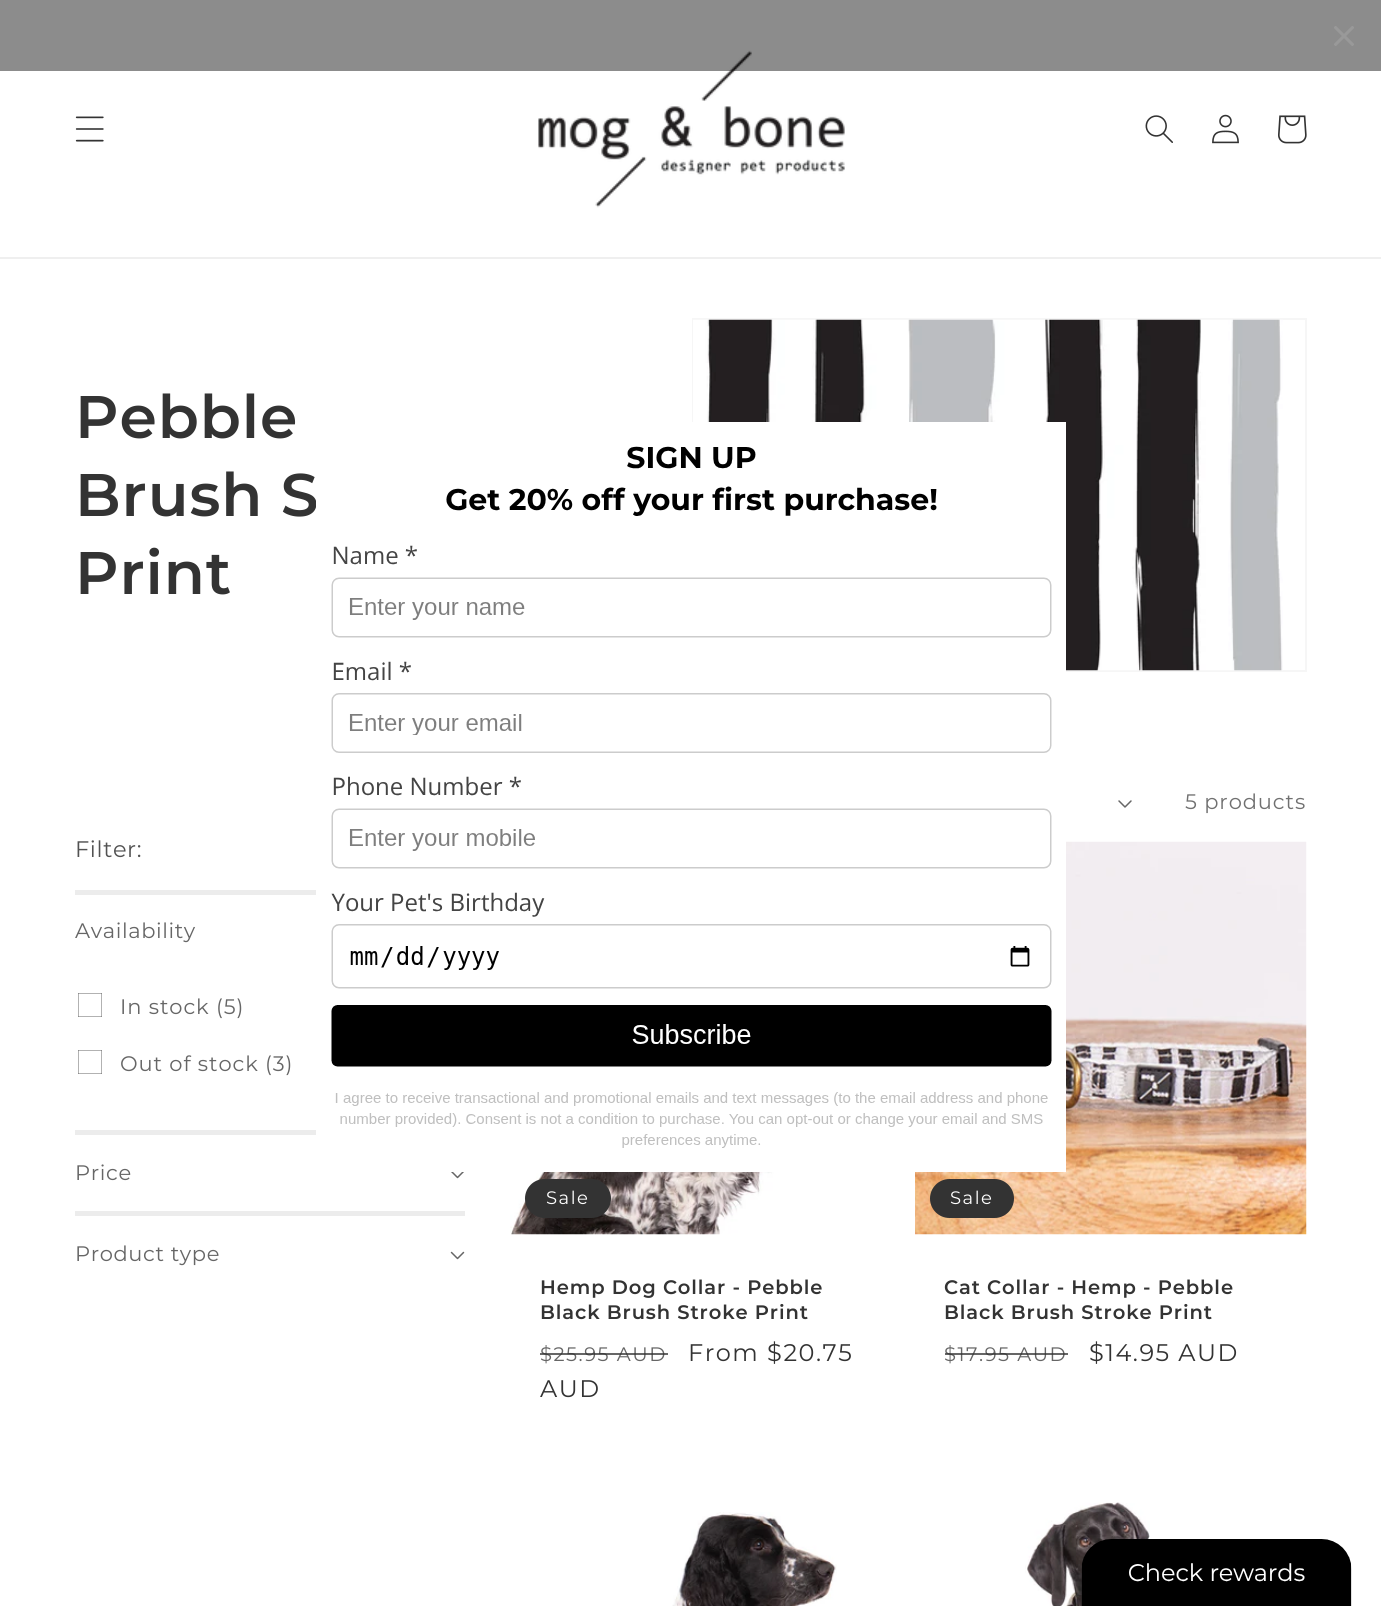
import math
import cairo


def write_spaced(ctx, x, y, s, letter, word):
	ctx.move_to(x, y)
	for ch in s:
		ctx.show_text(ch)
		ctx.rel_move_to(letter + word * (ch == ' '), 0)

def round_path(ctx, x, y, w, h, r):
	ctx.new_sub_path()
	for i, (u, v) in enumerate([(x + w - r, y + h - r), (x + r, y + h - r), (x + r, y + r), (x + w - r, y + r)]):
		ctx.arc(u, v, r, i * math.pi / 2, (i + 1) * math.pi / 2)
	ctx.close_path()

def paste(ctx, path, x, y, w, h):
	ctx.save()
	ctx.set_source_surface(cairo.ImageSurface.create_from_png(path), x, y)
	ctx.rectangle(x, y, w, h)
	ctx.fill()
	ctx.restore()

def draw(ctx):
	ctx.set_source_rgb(1, 1, 1)
	ctx.paint()
	paste(ctx, 'media/4.png', 538, 50, 307, 158)
	ctx.set_source_rgba(0, 0, 0, 0.45)
	ctx.rectangle(0, 0, 1381, 71)
	ctx.fill()
	paste(ctx, 'media/1.png', 1334, 26, 20, 20)
	ctx.select_font_face('Montserrat SemiBold')
	ctx.set_font_size(60)
	ctx.set_source_rgb(0.2, 0.2, 0.2)
	write_spaced(ctx, 75, 516, 'Brush S', 0.9, 0)
	ctx.rectangle(693, 319, 613, 352)
	ctx.set_source_rgb(0.961, 0.961, 0.961)
	ctx.stroke()
	paste(ctx, 'media/8.png', 693, 319, 590, 352)
	paste(ctx, 'media/13.png', 915, 841, 392, 394)
	paste(ctx, 'media/2.png', 316, 422, 750, 750)
	ctx.set_source_rgb(0.937, 0.937, 0.937)
	ctx.rectangle(0, 257, 1381, 2)
	ctx.fill()
	paste(ctx, 'media/3.png', 75, 116, 29, 26)
	paste(ctx, 'media/5.png', 1145, 115, 28, 28)
	paste(ctx, 'media/6.png', 1212, 114, 27, 30)
	paste(ctx, 'media/7.png', 1278, 115, 29, 29)
	ctx.set_source_rgb(0.2, 0.2, 0.2)
	write_spaced(ctx, 75, 438, 'Pebble', 0.9, 0)
	write_spaced(ctx, 75, 594, 'Print', 0.9, 0)
	paste(ctx, 'media/9.png', 1118, 800, 14, 8)
	ctx.select_font_face('Montserrat')
	ctx.set_font_size(21)
	ctx.set_source_rgb(0.439, 0.439, 0.439)
	write_spaced(ctx, 1185, 809, '5 products', 0.9, 0)
	ctx.set_font_size(22.5)
	ctx.set_source_rgb(0.322, 0.322, 0.322)
	write_spaced(ctx, 75, 857, 'Filter:', 0.6, 0)
	ctx.set_source_rgb(0.922, 0.922, 0.922)
	ctx.rectangle(75, 890, 241, 5)
	ctx.fill()
	ctx.set_font_size(21)
	ctx.set_source_rgb(0.4, 0.4, 0.4)
	write_spaced(ctx, 75, 938, 'Availability', 0.6, 0)
	ctx.save()
	ctx.rectangle(78, 993, 24, 24)
	ctx.clip()
	ctx.rectangle(77.75, 992.75, 24.5, 24.5)
	ctx.set_line_width(1.5)
	ctx.stroke()
	ctx.restore()
	write_spaced(ctx, 120, 1014, 'In stock (5)', 0.9, 0)
	ctx.save()
	ctx.rectangle(78, 1050, 24, 24)
	ctx.clip()
	ctx.rectangle(77.75, 1049.75, 24.5, 24.5)
	ctx.set_line_width(1.5)
	ctx.stroke()
	ctx.restore()
	write_spaced(ctx, 120, 1071, 'Out of stock (3)', 0.9, 0)
	ctx.set_source_rgb(0.922, 0.922, 0.922)
	ctx.rectangle(75, 1130, 241, 5)
	ctx.fill()
	ctx.set_source_rgb(0.4, 0.4, 0.4)
	write_spaced(ctx, 75, 1180, 'Price', 0.6, 0)
	paste(ctx, 'media/10.png', 451, 1172, 13, 7)
	ctx.set_source_rgb(0.922, 0.922, 0.922)
	ctx.rectangle(75, 1211, 390, 5)
	ctx.fill()
	ctx.set_source_rgb(0.4, 0.4, 0.4)
	write_spaced(ctx, 75, 1261, 'Product type', 0.6, 0)
	paste(ctx, 'media/11.png', 450, 1251, 15, 9)
	paste(ctx, 'media/12.png', 510, 1172, 352, 63)
	ctx.set_source_rgb(0.2, 0.2, 0.2)
	round_path(ctx, 526, 1180, 84, 37, 18.5)
	ctx.fill_preserve()
	ctx.stroke()
	ctx.set_font_size(18)
	ctx.set_source_rgb(1, 1, 1)
	write_spaced(ctx, 546, 1204, 'Sale', 1.5, 0)
	ctx.select_font_face('Montserrat SemiBold')
	ctx.set_font_size(19.5)
	ctx.set_source_rgb(0.2, 0.2, 0.2)
	write_spaced(ctx, 540, 1294, 'Hemp Dog Collar - Pebble', 0.9, 0)
	write_spaced(ctx, 540, 1319, 'Black Brush Stroke Print', 0.9, 0)
	ctx.select_font_face('Montserrat')
	ctx.set_source_rgb(0.4, 0.4, 0.4)
	write_spaced(ctx, 540, 1361, '$25.95 AUD', 1.5, 0)
	ctx.set_source_rgba(0.2, 0.2, 0.2, 0.75)
	ctx.rectangle(540, 1353, 128, 2)
	ctx.fill()
	ctx.set_font_size(24)
	ctx.set_source_rgb(0.2, 0.2, 0.2)
	write_spaced(ctx, 688, 1361, 'From $20.75', 1.5, 0)
	write_spaced(ctx, 540, 1397, 'AUD', 1.5, 0)
	round_path(ctx, 931, 1180, 82, 37, 18.5)
	ctx.fill_preserve()
	ctx.stroke()
	ctx.set_font_size(18)
	ctx.set_source_rgb(1, 1, 1)
	write_spaced(ctx, 950, 1204, 'Sale', 1.5, 0)
	ctx.select_font_face('Montserrat SemiBold')
	ctx.set_font_size(19.5)
	ctx.set_source_rgb(0.2, 0.2, 0.2)
	write_spaced(ctx, 944, 1294, 'Cat Collar - Hemp - Pebble', 0.9, 0)
	write_spaced(ctx, 944, 1319, 'Black Brush Stroke Print', 0.9, 0)
	ctx.select_font_face('Montserrat')
	ctx.set_source_rgb(0.4, 0.4, 0.4)
	write_spaced(ctx, 944, 1361, '$17.95 AUD', 1.5, 0)
	ctx.set_source_rgba(0.2, 0.2, 0.2, 0.75)
	ctx.rectangle(945, 1353, 123, 2)
	ctx.fill()
	ctx.set_font_size(24)
	ctx.set_source_rgb(0.2, 0.2, 0.2)
	write_spaced(ctx, 1089, 1361, '$14.95 AUD', 1.5, 0)
	paste(ctx, 'media/14.png', 672, 1512, 165, 94)
	paste(ctx, 'media/15.png', 1025, 1502, 125, 104)
	paste(ctx, 'media/16.png', 1081, 1539, 271, 67)


surface = cairo.ImageSurface(cairo.FORMAT_RGB24, 1381, 1606)
ctx = cairo.Context(surface)
options = cairo.FontOptions()
options.set_hint_metrics(cairo.HINT_METRICS_OFF)
options.set_hint_style(cairo.HINT_STYLE_NONE)
ctx.set_font_options(options)
ctx.set_miter_limit(4)
draw(ctx)
surface.write_to_png('image.png')
